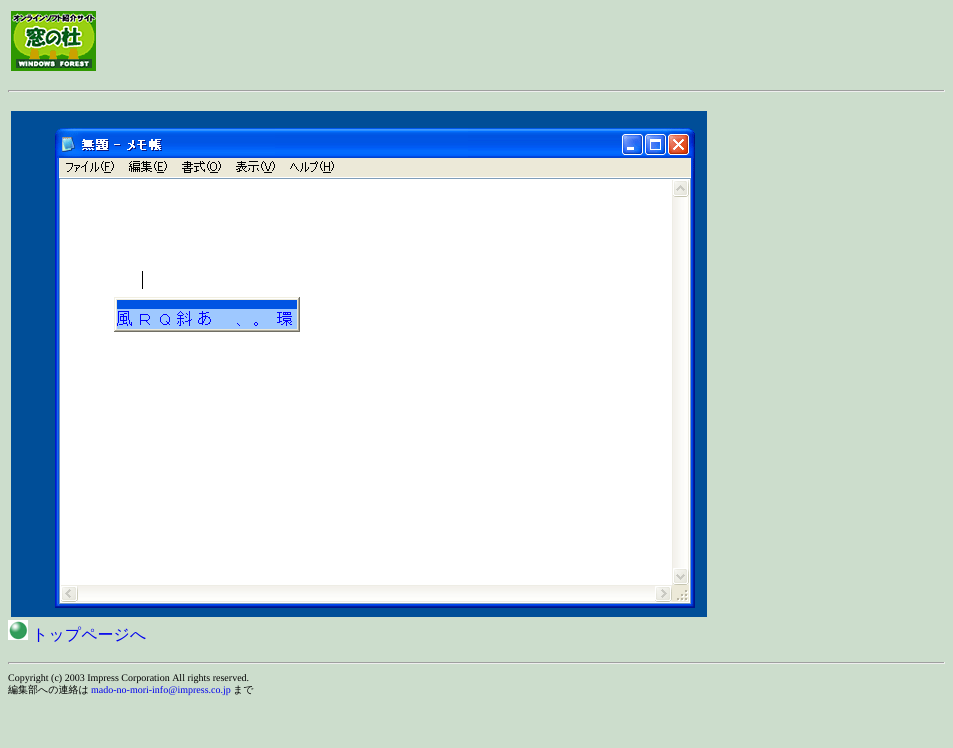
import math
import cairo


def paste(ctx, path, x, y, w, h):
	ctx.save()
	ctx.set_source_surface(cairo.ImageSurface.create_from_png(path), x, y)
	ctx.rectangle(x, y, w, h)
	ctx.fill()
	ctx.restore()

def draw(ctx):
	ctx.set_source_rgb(0.8, 0.867, 0.8)
	ctx.paint()
	paste(ctx, 'media/1.png', 11, 11, 85, 60)
	ctx.set_source_rgb(0.624, 0.624, 0.624)
	ctx.rectangle(8, 90, 937, 1)
	ctx.fill()
	ctx.set_source_rgb(0.933, 0.933, 0.933)
	ctx.rectangle(944, 90, 1, 2)
	ctx.rectangle(8, 91, 937, 1)
	ctx.fill()
	ctx.set_source_rgb(0.624, 0.624, 0.624)
	ctx.rectangle(8, 90, 1, 2)
	ctx.fill()
	paste(ctx, 'media/2.png', 11, 111, 696, 506)
	paste(ctx, 'media/3.png', 8, 620, 20, 20)
	ctx.select_font_face('WenQuanYi Zen Hei Medium')
	ctx.set_font_size(16)
	ctx.set_source_rgb(0, 0, 0.933)
	ctx.move_to(32, 640)
	ctx.show_text('トップページへ')
	ctx.set_source_rgb(0.624, 0.624, 0.624)
	ctx.rectangle(8, 662, 937, 1)
	ctx.fill()
	ctx.set_source_rgb(0.933, 0.933, 0.933)
	ctx.rectangle(944, 662, 1, 2)
	ctx.rectangle(8, 663, 937, 1)
	ctx.fill()
	ctx.set_source_rgb(0.624, 0.624, 0.624)
	ctx.rectangle(8, 662, 1, 2)
	ctx.fill()
	ctx.select_font_face('Liberation Serif')
	ctx.set_font_size(10)
	ctx.set_source_rgb(0, 0, 0)
	ctx.move_to(8, 681)
	ctx.show_text('Copyright (c) 2003 Impress Corporation All rights reserved.')
	ctx.select_font_face('WenQuanYi Zen Hei Medium')
	ctx.move_to(8, 693)
	ctx.show_text('編集部への連絡は')
	ctx.select_font_face('Liberation Serif')
	ctx.set_source_rgb(0, 0, 0.933)
	ctx.move_to(91, 693)
	ctx.show_text('mado-no-mori-info@impress.co.jp')
	ctx.select_font_face('WenQuanYi Zen Hei Medium')
	ctx.set_source_rgb(0, 0, 0)
	ctx.move_to(233, 693)
	ctx.show_text('まで')


surface = cairo.ImageSurface(cairo.FORMAT_RGB24, 953, 748)
ctx = cairo.Context(surface)
options = cairo.FontOptions()
options.set_hint_metrics(cairo.HINT_METRICS_OFF)
options.set_hint_style(cairo.HINT_STYLE_NONE)
ctx.set_font_options(options)
ctx.set_miter_limit(4)
draw(ctx)
surface.write_to_png('image.png')
